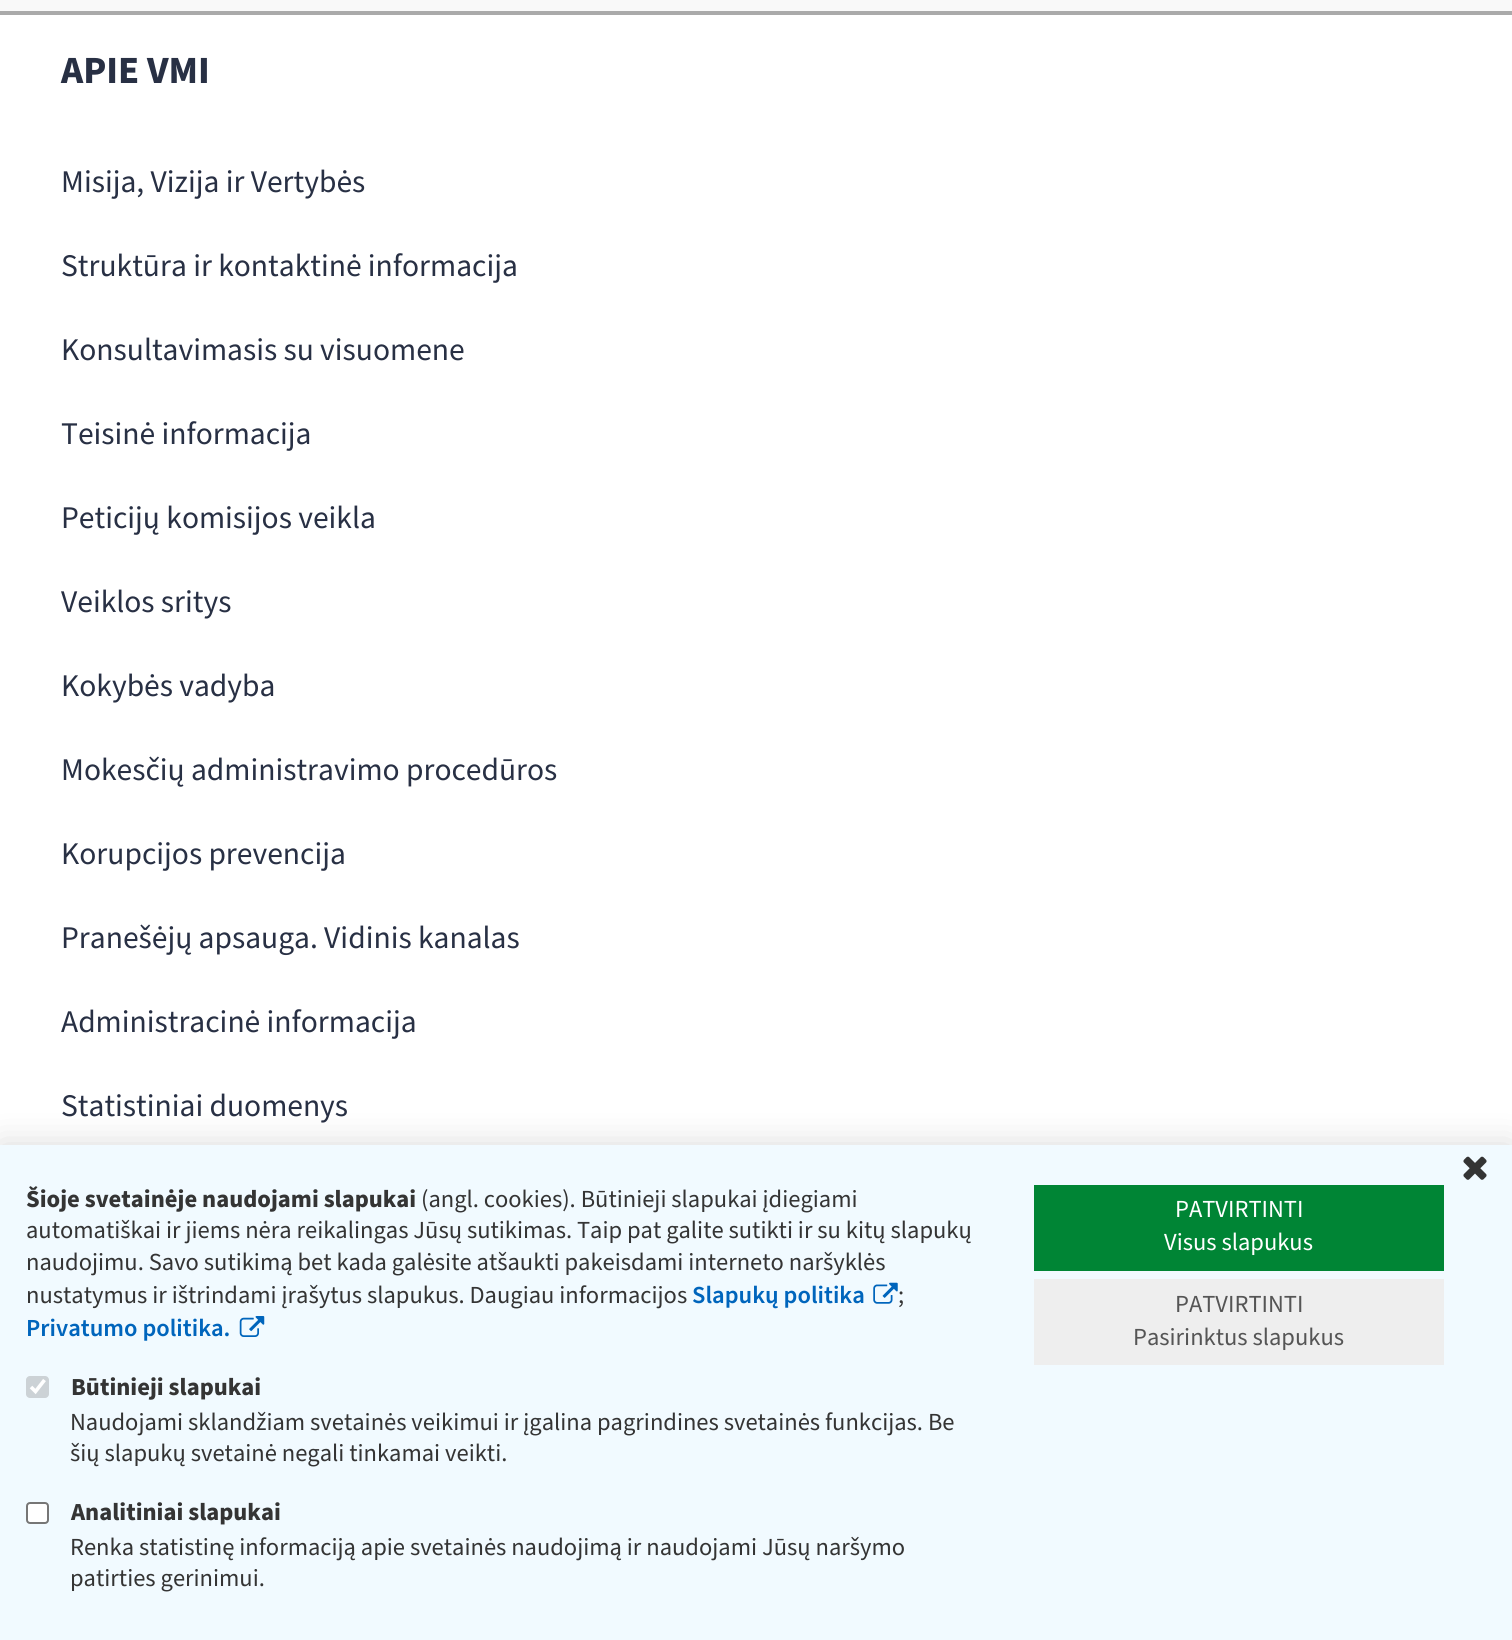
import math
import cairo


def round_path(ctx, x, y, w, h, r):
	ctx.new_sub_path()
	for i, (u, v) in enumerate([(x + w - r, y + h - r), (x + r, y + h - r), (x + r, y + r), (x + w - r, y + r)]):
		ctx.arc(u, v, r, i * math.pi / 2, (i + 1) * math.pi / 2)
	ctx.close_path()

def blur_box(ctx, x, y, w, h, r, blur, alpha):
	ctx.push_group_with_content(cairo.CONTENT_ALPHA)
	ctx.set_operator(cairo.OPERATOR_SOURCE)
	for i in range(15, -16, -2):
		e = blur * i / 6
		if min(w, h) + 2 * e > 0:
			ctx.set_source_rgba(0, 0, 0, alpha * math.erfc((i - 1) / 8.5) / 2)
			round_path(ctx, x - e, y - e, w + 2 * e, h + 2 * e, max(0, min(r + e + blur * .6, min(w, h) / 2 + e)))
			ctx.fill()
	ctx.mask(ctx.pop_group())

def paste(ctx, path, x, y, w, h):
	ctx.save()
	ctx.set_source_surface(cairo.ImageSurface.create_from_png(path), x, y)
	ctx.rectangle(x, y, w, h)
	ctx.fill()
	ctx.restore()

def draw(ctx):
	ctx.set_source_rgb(0.976, 0.976, 0.976)
	ctx.paint()
	ctx.set_source_rgb(1, 1, 1)
	ctx.rectangle(0, 15, 1512, 1130)
	ctx.fill()
	ctx.set_source_rgb(0.667, 0.667, 0.667)
	ctx.rectangle(0, 11, 1512, 4)
	ctx.fill()
	ctx.select_font_face('Source Sans Pro', cairo.FONT_SLANT_NORMAL, cairo.FONT_WEIGHT_BOLD)
	ctx.set_font_size(38.5)
	ctx.set_source_rgb(0.157, 0.188, 0.267)
	ctx.move_to(61, 83)
	ctx.show_text('APIE VMI')
	ctx.select_font_face('Source Sans Pro')
	ctx.set_font_size(31.5)
	for x, y, s in [
		(61, 192, 'Misija, Vizija ir Vertybės'),
		(61, 276, 'Struktūra ir kontaktinė informacija'),
		(61, 360, 'Konsultavimasis su visuomene'),
		(61, 444, 'Teisinė informacija'),
		(61, 528, 'Peticijų komisijos veikla'),
		(61, 612, 'Veiklos sritys'),
		(61, 696, 'Kokybės vadyba'),
		(61, 780, 'Mokesčių administravimo procedūros'),
		(61, 864, 'Korupcijos prevencija'),
		(61, 948, 'Pranešėjų apsauga. Vidinis kanalas'),
		(61, 1032, 'Administracinė informacija'),
		(61, 1116, 'Statistiniai duomenys'),
	]:
		ctx.move_to(x, y)
		ctx.show_text(s)
	ctx.set_source_rgb(0, 0, 0)
	blur_box(ctx, 0, 1145, 1512, 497, 0, 17.5, 0.15)
	ctx.set_source_rgb(0.945, 0.98, 1)
	ctx.rectangle(0, 1145, 1512, 495)
	ctx.fill()
	paste(ctx, 'media/1.png', 1463, 1156, 24, 24)
	ctx.select_font_face('Source Sans Pro', cairo.FONT_SLANT_NORMAL, cairo.FONT_WEIGHT_BOLD)
	ctx.set_font_size(24.5)
	ctx.set_source_rgb(0.204, 0.204, 0.204)
	ctx.move_to(26, 1207)
	ctx.show_text('Šioje svetainėje naudojami slapukai')
	ctx.select_font_face('Source Sans Pro')
	for x, y, s in [
		(421, 1207, '(angl. cookies). Būtinieji slapukai įdiegiami'),
		(26, 1238, 'automatiškai ir jiems nėra reikalingas Jūsų sutikimas. Taip pat galite sutikti ir su kitų slapukų'),
		(26, 1270, 'naudojimu. Savo sutikimą bet kada galėsite atšaukti pakeisdami interneto naršyklės'),
		(26, 1303, 'nustatymus ir ištrindami įrašytus slapukus. Daugiau informacijos'),
	]:
		ctx.move_to(x, y)
		ctx.show_text(s)
	ctx.select_font_face('Source Sans Pro SemiBold')
	ctx.set_source_rgb(0, 0.396, 0.737)
	ctx.move_to(692, 1303)
	ctx.show_text('Slapukų politika')
	paste(ctx, 'media/2.png', 873, 1282, 25, 22)
	ctx.select_font_face('Source Sans Pro')
	ctx.set_source_rgb(0.204, 0.204, 0.204)
	ctx.move_to(898, 1303)
	ctx.show_text(';')
	ctx.select_font_face('Source Sans Pro SemiBold')
	ctx.set_source_rgb(0, 0.396, 0.737)
	ctx.move_to(26, 1336)
	ctx.show_text('Privatumo politika.')
	paste(ctx, 'media/3.png', 239, 1316, 26, 21)
	ctx.set_source_rgb(0.8, 0.824, 0.839)
	round_path(ctx, 26, 1376, 23, 22, 4)
	ctx.fill()
	ctx.new_path()
	ctx.move_to(31, 1387)
	ctx.line_to(35.5, 1391.5)
	ctx.line_to(44.5, 1380)
	ctx.set_source_rgb(1, 1, 1)
	ctx.set_line_width(3.6)
	ctx.stroke()
	ctx.select_font_face('Source Sans Pro', cairo.FONT_SLANT_NORMAL, cairo.FONT_WEIGHT_BOLD)
	ctx.set_source_rgb(0.204, 0.204, 0.204)
	ctx.move_to(71, 1395)
	ctx.show_text('Būtinieji slapukai')
	ctx.select_font_face('Source Sans Pro')
	ctx.move_to(70, 1430)
	ctx.show_text('Naudojami sklandžiam svetainės veikimui ir įgalina pagrindines svetainės funkcijas. Be')
	ctx.move_to(70, 1461)
	ctx.show_text('šių slapukų svetainė negali tinkamai veikti.')
	ctx.set_source_rgb(1, 1, 1)
	round_path(ctx, 27, 1503, 21, 20, 3)
	ctx.fill_preserve()
	ctx.set_source_rgb(0.463, 0.463, 0.463)
	ctx.set_line_width(2)
	ctx.stroke()
	ctx.select_font_face('Source Sans Pro', cairo.FONT_SLANT_NORMAL, cairo.FONT_WEIGHT_BOLD)
	ctx.set_source_rgb(0.204, 0.204, 0.204)
	ctx.move_to(71, 1520)
	ctx.show_text('Analitiniai slapukai')
	ctx.select_font_face('Source Sans Pro')
	ctx.move_to(70, 1555)
	ctx.show_text('Renka statistinę informaciją apie svetainės naudojimą ir naudojami Jūsų naršymo')
	ctx.move_to(70, 1586)
	ctx.show_text('patirties gerinimui.')
	ctx.set_source_rgb(0, 0.522, 0.208)
	ctx.rectangle(1034, 1185, 410, 86)
	ctx.fill()
	ctx.set_source_rgb(1, 1, 1)
	ctx.move_to(1175, 1217)
	ctx.show_text('PATVIRTINTI')
	ctx.move_to(1164, 1250)
	ctx.show_text('Visus slapukus')
	ctx.set_source_rgb(0.933, 0.933, 0.933)
	ctx.rectangle(1034, 1279, 410, 86)
	ctx.fill()
	ctx.set_source_rgb(0.333, 0.333, 0.333)
	ctx.move_to(1175, 1312)
	ctx.show_text('PATVIRTINTI')
	ctx.move_to(1133, 1345)
	ctx.show_text('Pasirinktus slapukus')


surface = cairo.ImageSurface(cairo.FORMAT_RGB24, 1512, 1640)
ctx = cairo.Context(surface)
options = cairo.FontOptions()
options.set_hint_metrics(cairo.HINT_METRICS_OFF)
options.set_hint_style(cairo.HINT_STYLE_NONE)
ctx.set_font_options(options)
ctx.set_miter_limit(4)
draw(ctx)
surface.write_to_png('image.png')
